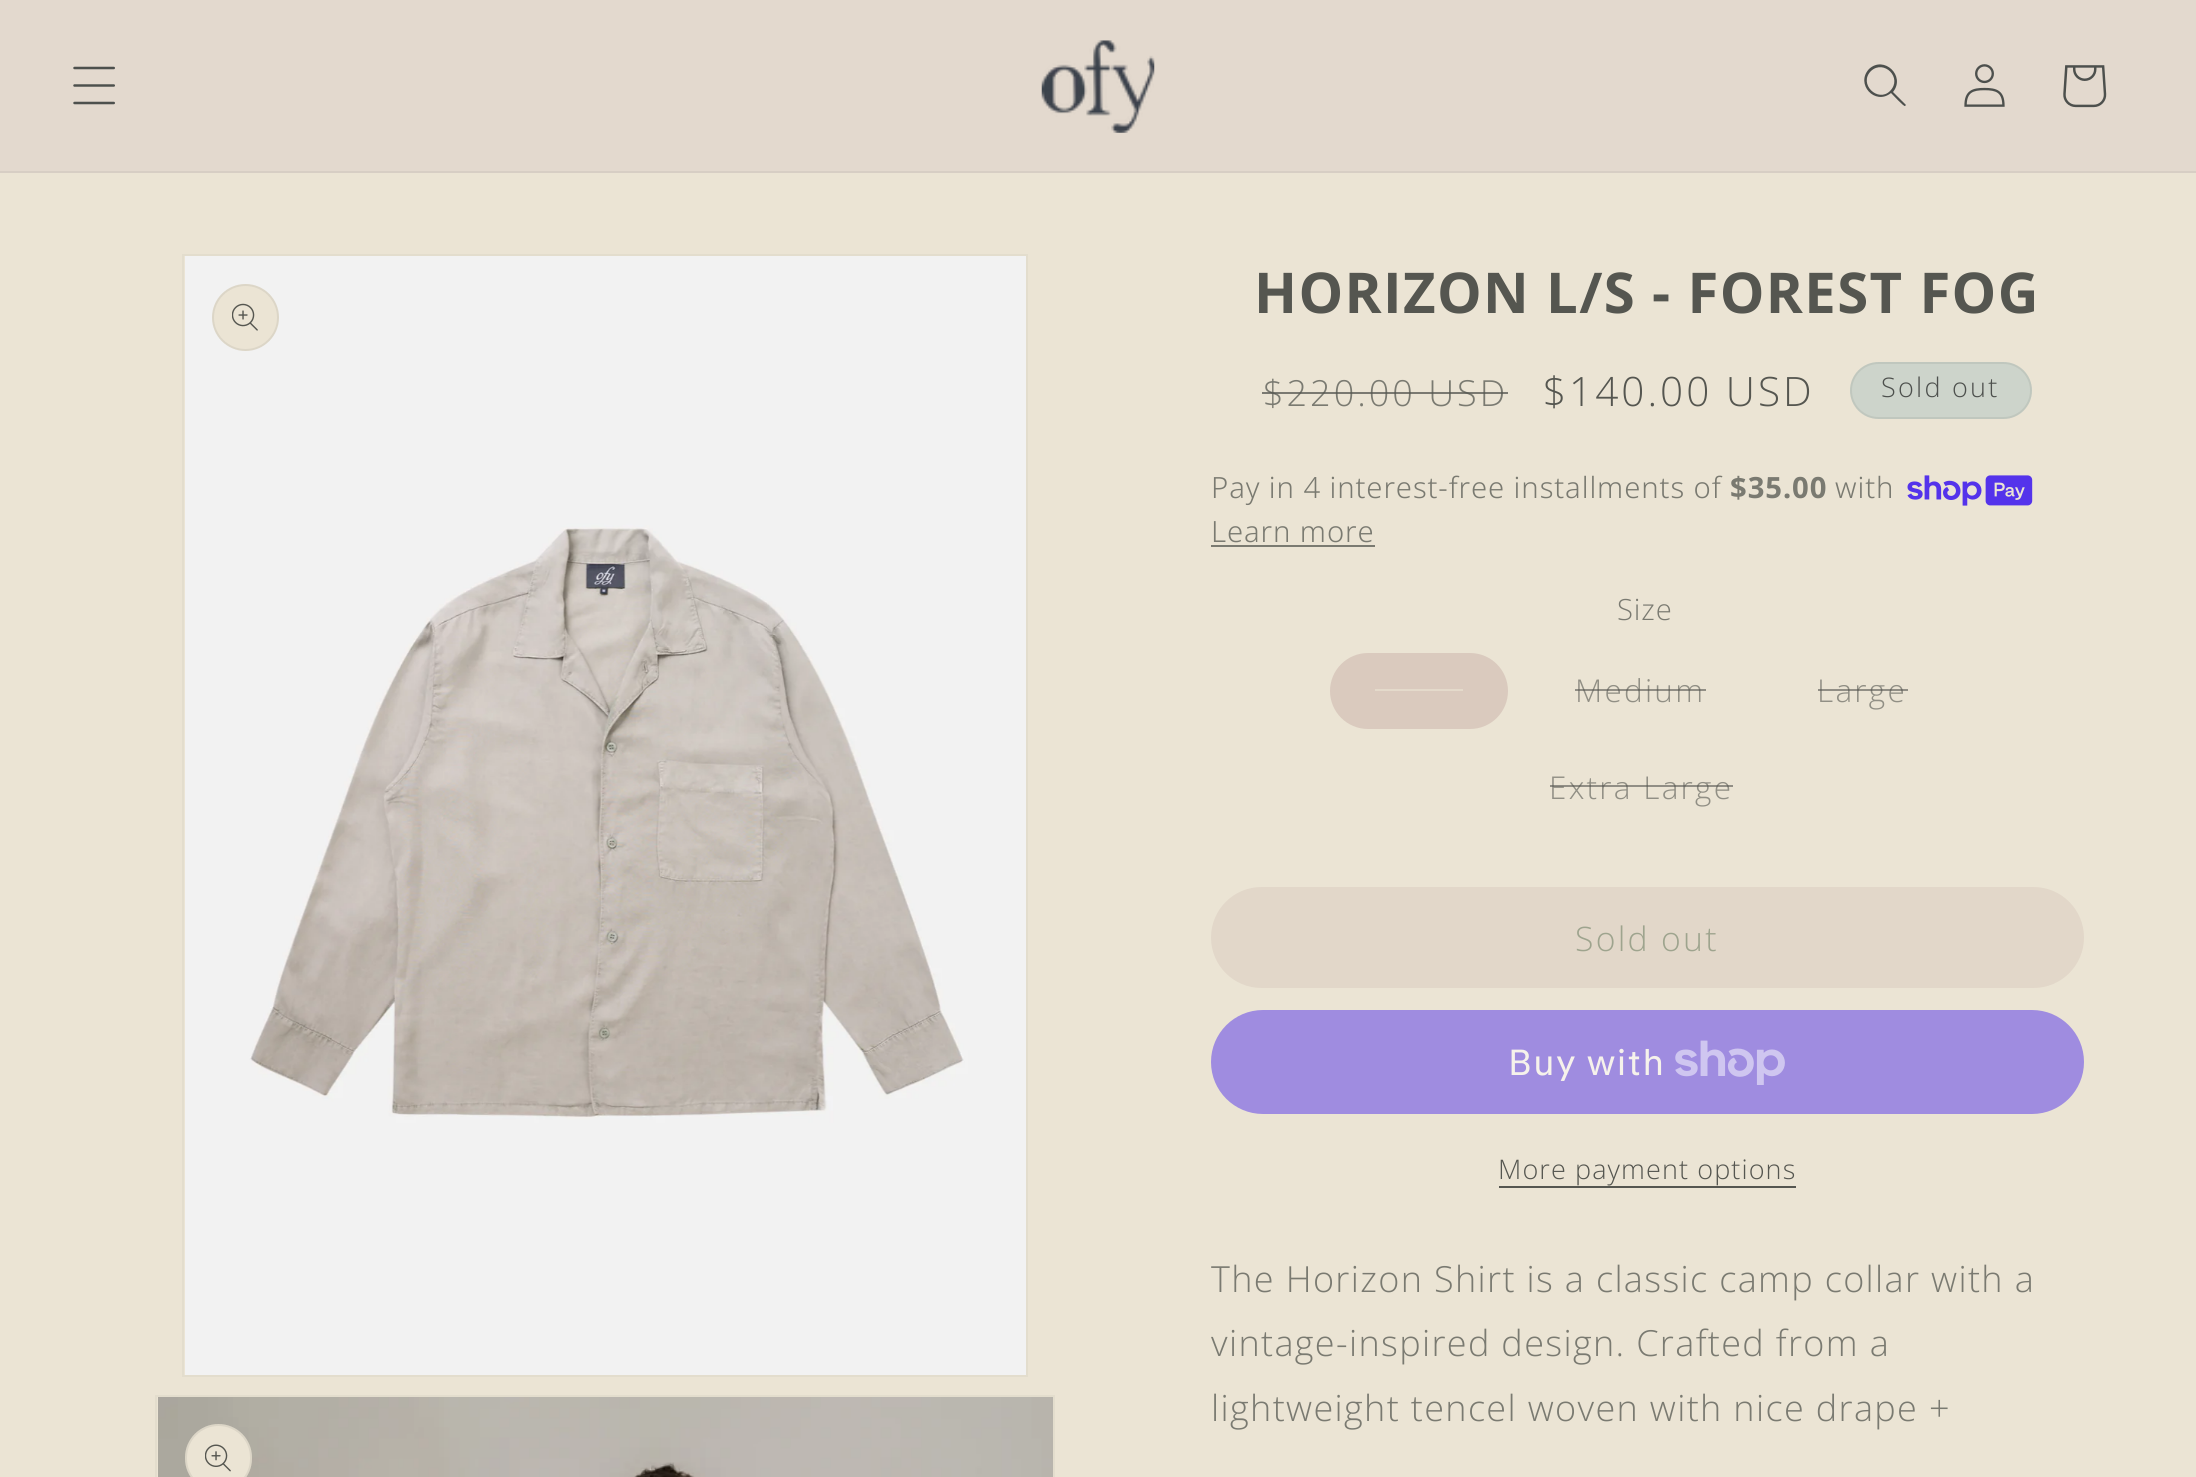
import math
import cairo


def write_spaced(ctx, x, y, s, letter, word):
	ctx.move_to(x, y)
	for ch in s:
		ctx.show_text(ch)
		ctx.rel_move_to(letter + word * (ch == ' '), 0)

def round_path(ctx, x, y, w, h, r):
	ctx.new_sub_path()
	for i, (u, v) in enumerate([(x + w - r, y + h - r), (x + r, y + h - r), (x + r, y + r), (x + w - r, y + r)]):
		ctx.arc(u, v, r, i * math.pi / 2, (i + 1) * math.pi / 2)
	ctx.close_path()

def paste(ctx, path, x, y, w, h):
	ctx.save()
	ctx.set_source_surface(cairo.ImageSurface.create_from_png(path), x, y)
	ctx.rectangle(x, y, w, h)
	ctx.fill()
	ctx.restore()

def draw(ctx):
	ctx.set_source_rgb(0.918, 0.894, 0.831)
	ctx.paint()
	ctx.set_source_rgb(0.89, 0.851, 0.808)
	ctx.rectangle(0, 0, 2196, 171)
	ctx.fill()
	ctx.set_source_rgb(0.843, 0.808, 0.769)
	ctx.rectangle(0, 171, 2196, 2)
	ctx.fill()
	paste(ctx, 'media/1.png', 73, 66, 42, 39)
	paste(ctx, 'media/2.png', 1041, 40, 114, 93)
	ctx.set_source_rgb(0.302, 0.314, 0.302)
	ctx.set_fill_rule(cairo.FILL_RULE_EVEN_ODD)
	ctx.new_path()
	ctx.move_to(1890, 91)
	ctx.curve_to(1878, 103, 1858, 84, 1871, 71)
	ctx.curve_to(1884, 59, 1903, 78, 1890, 91)
	ctx.close_path()
	ctx.move_to(1891, 93)
	ctx.curve_to(1875, 106, 1855, 84, 1869, 69)
	ctx.curve_to(1884, 55, 1906, 76, 1893, 92)
	ctx.line_to(1906, 105)
	ctx.line_to(1905, 106)
	ctx.curve_to(1904, 107, 1893, 95, 1891, 93)
	ctx.close_path()
	ctx.fill()
	paste(ctx, 'media/3.png', 1964, 64, 41, 43)
	paste(ctx, 'media/4.png', 2063, 65, 44, 43)
	ctx.rectangle(183, 255, 844, 1121)
	ctx.set_source_rgb(0.89, 0.867, 0.804)
	ctx.stroke()
	paste(ctx, 'media/5.png', 185, 256, 841, 1119)
	ctx.set_source_rgb(0.918, 0.894, 0.831)
	ctx.arc(245.5, 317.5, 33.5, 0, 2 * math.pi)
	ctx.fill()
	ctx.arc(245.5, 317.5, 32.5, 0, 2 * math.pi)
	ctx.set_source_rgba(0.333, 0.337, 0.314, 0.1)
	ctx.stroke()
	paste(ctx, 'media/6.png', 232, 303, 26, 28)
	ctx.rectangle(156, 1396, 898, 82)
	ctx.set_source_rgb(0.89, 0.867, 0.804)
	ctx.stroke()
	paste(ctx, 'media/7.png', 158, 1397, 895, 80)
	ctx.set_source_rgb(0.918, 0.894, 0.831)
	round_path(ctx, 185, 1424, 67, 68, 33.5)
	ctx.fill()
	round_path(ctx, 186, 1425, 65, 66, 32.5)
	ctx.set_source_rgba(0.333, 0.337, 0.314, 0.1)
	ctx.stroke()
	paste(ctx, 'media/8.png', 205, 1444, 26, 28)
	ctx.select_font_face('Open Sans', cairo.FONT_SLANT_NORMAL, cairo.FONT_WEIGHT_BOLD)
	ctx.set_font_size(56.25)
	ctx.set_source_rgb(0.333, 0.337, 0.314)
	write_spaced(ctx, 1254, 313, 'HORIZON L/S - FOREST FOG', 1.35, 0)
	ctx.select_font_face('Open Sans Light')
	ctx.set_font_size(36)
	ctx.set_source_rgb(0.478, 0.478, 0.443)
	write_spaced(ctx, 1263, 406, '$220.00 USD', 3, 0)
	ctx.set_source_rgba(0.333, 0.337, 0.314, 0.75)
	ctx.rectangle(1262, 392, 246, 2)
	ctx.fill()
	ctx.set_font_size(40.5)
	ctx.set_source_rgb(0.333, 0.337, 0.314)
	write_spaced(ctx, 1543, 406, '$140.00 USD', 3, 0)
	ctx.set_source_rgb(0.804, 0.831, 0.796)
	round_path(ctx, 1850, 362, 182, 57, 28.5)
	ctx.fill()
	round_path(ctx, 1851, 363, 180, 55, 27.5)
	ctx.set_source_rgba(0.302, 0.314, 0.302, 0.1)
	ctx.stroke()
	ctx.set_font_size(27)
	ctx.set_source_rgb(0.302, 0.314, 0.302)
	write_spaced(ctx, 1881, 397, 'Sold out', 2.25, 0)
	ctx.select_font_face('Noto Sans Light')
	ctx.set_font_size(29.25)
	ctx.set_source_rgb(0.478, 0.478, 0.443)
	write_spaced(ctx, 1211, 498, 'Pay in 4 interest-free installments of', 0.9, 0)
	ctx.select_font_face('Noto Sans', cairo.FONT_SLANT_NORMAL, cairo.FONT_WEIGHT_BOLD)
	write_spaced(ctx, 1730, 498, '$35.00', 0.9, 0)
	ctx.select_font_face('Noto Sans Light')
	write_spaced(ctx, 1835, 498, 'with', 0.9, 0)
	paste(ctx, 'media/9.png', 1907, 475, 126, 31)
	write_spaced(ctx, 1211, 542, 'Learn more', 0.9, 0)
	ctx.rectangle(1211, 545, 164, 2)
	ctx.fill()
	ctx.select_font_face('Open Sans Light')
	write_spaced(ctx, 1617, 620, 'Size', 0.9, 0)
	ctx.set_source_rgb(0.855, 0.792, 0.745)
	round_path(ctx, 1330, 653, 178, 76, 38)
	ctx.fill()
	ctx.set_source_rgba(0.918, 0.894, 0.831, 0.6)
	ctx.rectangle(1375, 689, 88, 2)
	ctx.fill()
	ctx.set_font_size(31.5)
	ctx.set_source_rgb(0.569, 0.561, 0.522)
	write_spaced(ctx, 1575, 702, 'Medium', 2.25, 0)
	ctx.set_source_rgba(0.333, 0.337, 0.314, 0.6)
	ctx.rectangle(1575, 689, 131, 2)
	ctx.fill()
	ctx.set_source_rgb(0.569, 0.561, 0.522)
	write_spaced(ctx, 1817, 702, 'Large', 2.25, 0)
	ctx.set_source_rgba(0.333, 0.337, 0.314, 0.6)
	ctx.rectangle(1818, 689, 90, 2)
	ctx.fill()
	ctx.set_source_rgb(0.569, 0.561, 0.522)
	write_spaced(ctx, 1549, 799, 'Extra Large', 2.25, 0)
	ctx.set_source_rgba(0.333, 0.337, 0.314, 0.6)
	ctx.rectangle(1550, 785, 183, 2)
	ctx.fill()
	ctx.set_source_rgb(0.886, 0.843, 0.788)
	round_path(ctx, 1211, 887, 873, 101, 50.5)
	ctx.fill()
	ctx.set_font_size(33.75)
	ctx.set_source_rgb(0.62, 0.643, 0.557)
	write_spaced(ctx, 1575, 951, 'Sold out', 2.25, 0)
	ctx.set_source_rgb(0.624, 0.549, 0.878)
	round_path(ctx, 1211, 1010, 873, 104, 52)
	ctx.fill()
	ctx.select_font_face('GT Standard')
	ctx.set_font_size(36)
	ctx.set_source_rgb(0.961, 0.949, 0.918)
	write_spaced(ctx, 1508, 1075, 'Buy with', 1.35, 0)
	paste(ctx, 'media/10.png', 1675, 1040, 110, 45)
	ctx.select_font_face('Open Sans Light')
	ctx.set_font_size(27)
	ctx.set_source_rgb(0.333, 0.337, 0.314)
	write_spaced(ctx, 1498, 1179, 'More payment options', 1.1, 0)
	ctx.rectangle(1499, 1186, 297, 2)
	ctx.fill()
	ctx.set_font_size(36)
	ctx.set_source_rgb(0.478, 0.478, 0.443)
	for x, y, s in [
		(1211, 1292, 'The Horizon Shirt is a classic camp collar with a'),
		(1211, 1356, 'vintage-inspired design. Crafted from a'),
		(1211, 1421, 'lightweight tencel woven with nice drape +'),
	]:
		write_spaced(ctx, x, y, s, 1.35, 0)


surface = cairo.ImageSurface(cairo.FORMAT_RGB24, 2196, 1477)
ctx = cairo.Context(surface)
options = cairo.FontOptions()
options.set_hint_metrics(cairo.HINT_METRICS_OFF)
options.set_hint_style(cairo.HINT_STYLE_NONE)
ctx.set_font_options(options)
ctx.set_miter_limit(4)
draw(ctx)
surface.write_to_png('image.png')
